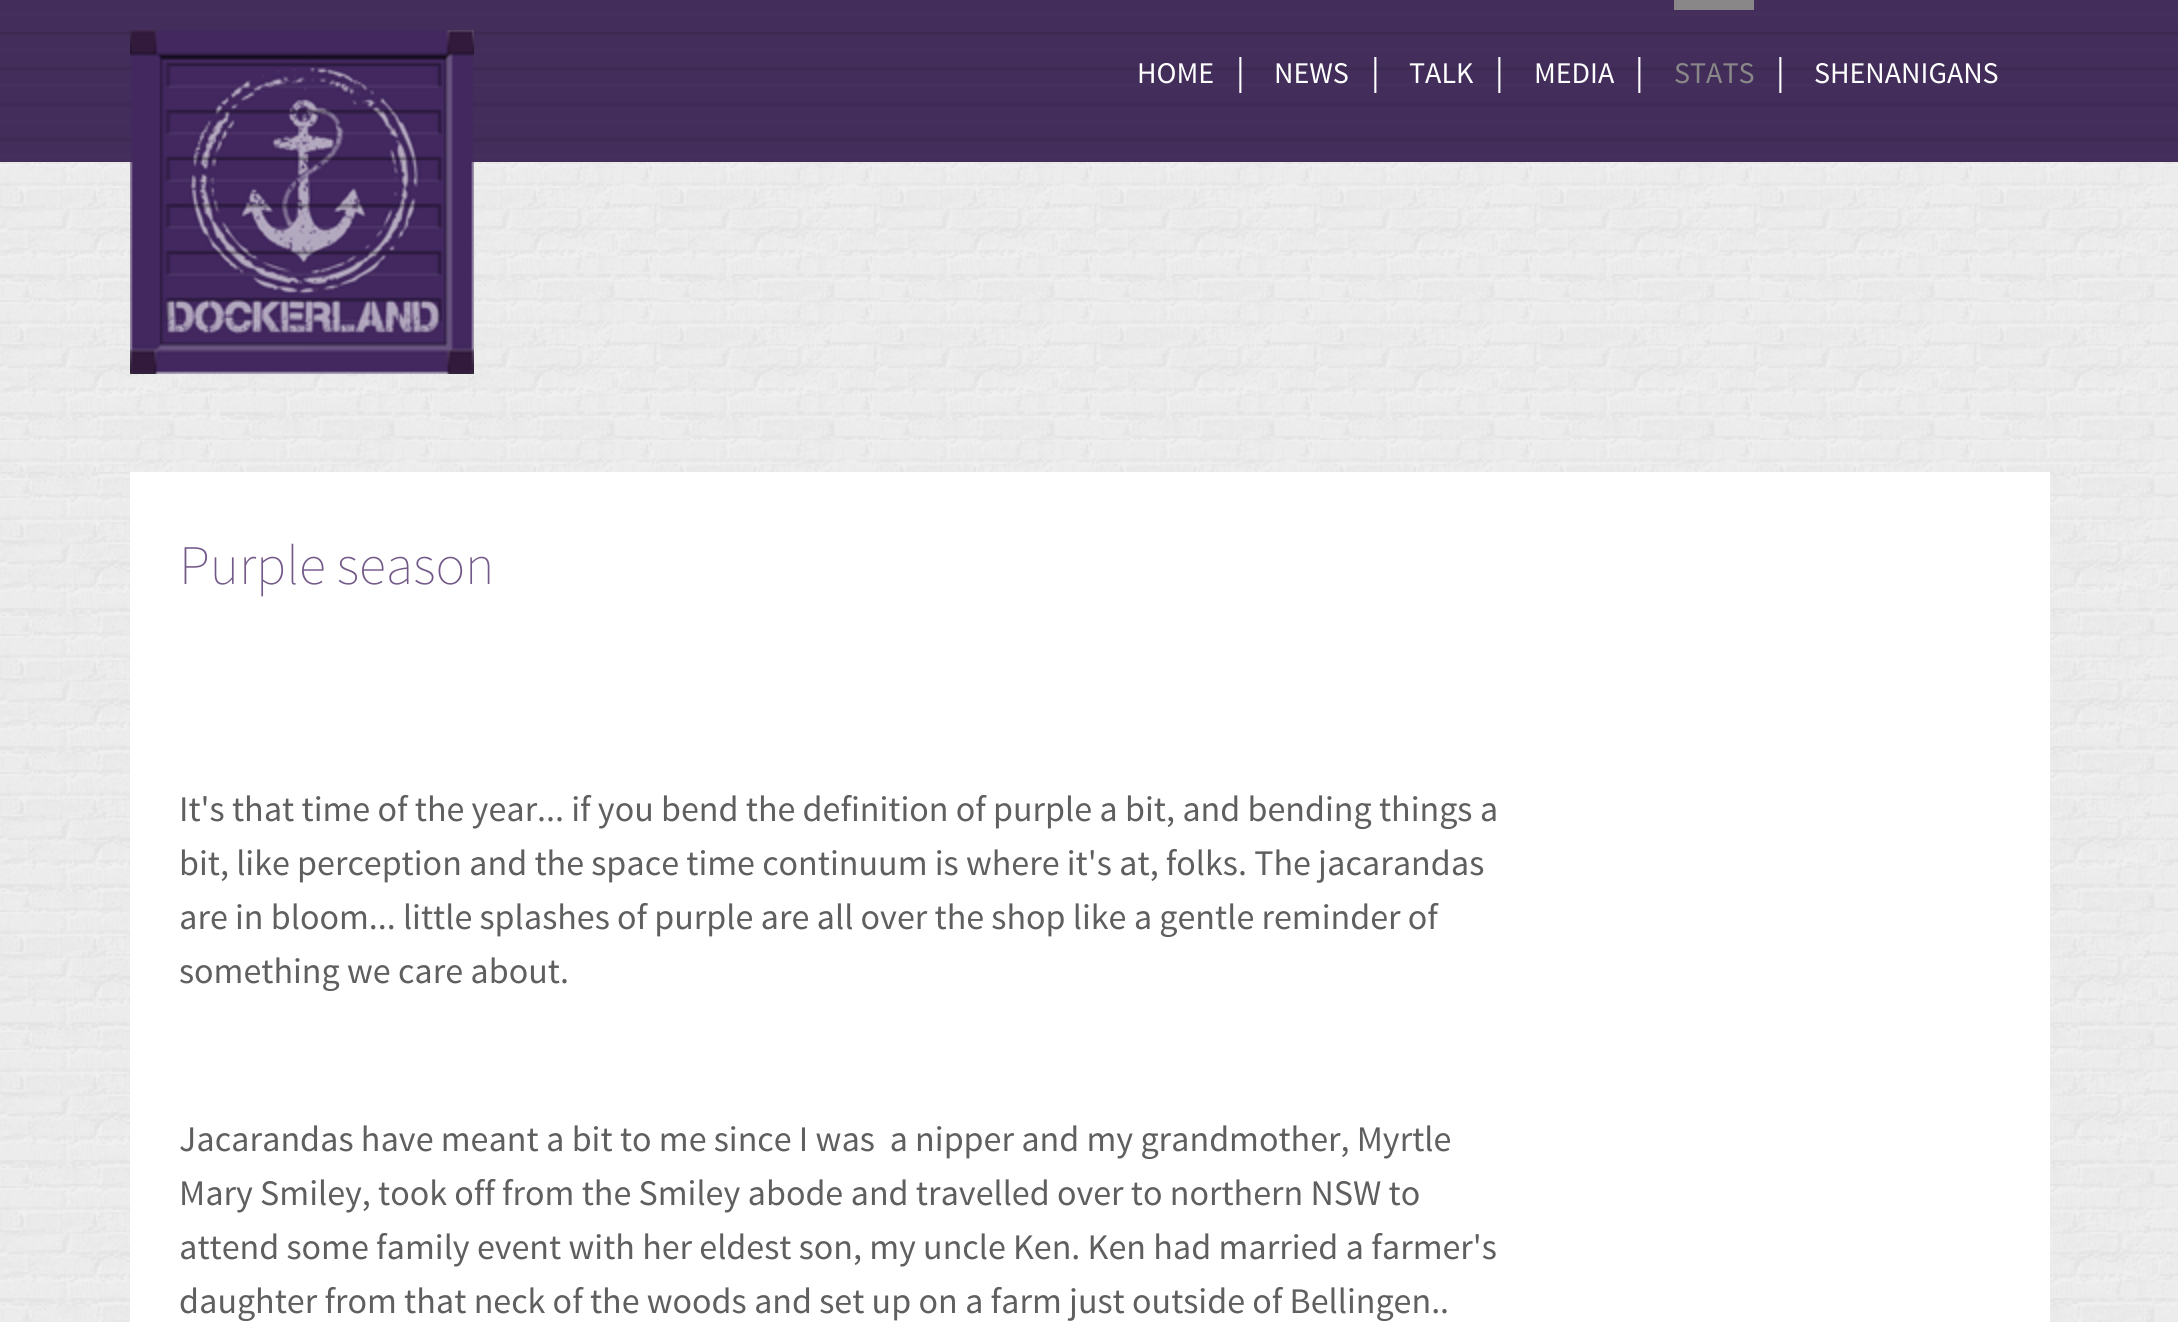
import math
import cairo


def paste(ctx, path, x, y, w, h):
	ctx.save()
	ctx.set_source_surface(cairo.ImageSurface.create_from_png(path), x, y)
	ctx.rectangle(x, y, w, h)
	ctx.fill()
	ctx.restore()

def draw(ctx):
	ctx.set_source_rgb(1, 1, 1)
	ctx.paint()
	paste(ctx, 'media/1.png', 0, 162, 2178, 310)
	paste(ctx, 'media/2.png', 0, 0, 2178, 162)
	paste(ctx, 'media/3.png', 130, 30, 344, 344)
	ctx.select_font_face('Source Sans Pro')
	ctx.set_font_size(30)
	ctx.set_source_rgb(1, 1, 1)
	ctx.move_to(1137, 83)
	ctx.show_text('HOME')
	ctx.set_font_size(36)
	ctx.move_to(1236, 84)
	ctx.show_text('|')
	ctx.set_font_size(30)
	ctx.move_to(1274, 83)
	ctx.show_text('NEWS')
	ctx.set_font_size(36)
	ctx.move_to(1371, 84)
	ctx.show_text('|')
	ctx.set_font_size(30)
	ctx.move_to(1409, 83)
	ctx.show_text('TALK')
	ctx.set_font_size(36)
	ctx.move_to(1495, 84)
	ctx.show_text('|')
	ctx.set_font_size(30)
	ctx.move_to(1534, 83)
	ctx.show_text('MEDIA')
	ctx.set_font_size(36)
	ctx.move_to(1635, 84)
	ctx.show_text('|')
	ctx.set_source_rgb(0.537, 0.529, 0.533)
	ctx.rectangle(1674, 0, 80, 10)
	ctx.fill()
	ctx.set_font_size(30)
	ctx.move_to(1674, 83)
	ctx.show_text('STATS')
	ctx.set_font_size(36)
	ctx.set_source_rgb(1, 1, 1)
	ctx.move_to(1776, 84)
	ctx.show_text('|')
	ctx.set_font_size(30)
	ctx.move_to(1814, 83)
	ctx.show_text('SHENANIGANS')
	paste(ctx, 'media/4.png', 0, 472, 2178, 850)
	ctx.rectangle(130, 472, 1920, 850)
	ctx.fill()
	ctx.select_font_face('Source Sans Pro ExtraLight')
	ctx.set_font_size(55.75)
	ctx.set_source_rgb(0.451, 0.349, 0.533)
	ctx.move_to(179, 584)
	ctx.show_text('Purple season')
	ctx.select_font_face('Source Sans Pro')
	ctx.set_font_size(36)
	ctx.set_source_rgb(0.373, 0.373, 0.373)
	for x, y, s in [
		(179, 821, 'It\'s that time of the year... if you bend the definition of purple a bit, and bending things a'),
		(179, 875, 'bit, like perception and the space time continuum is where it\'s at, folks. The jacarandas'),
		(179, 929, 'are in bloom... little splashes of purple are all over the shop like a gentle reminder of'),
		(179, 983, 'something we care about.'),
		(179, 1151, 'Jacarandas have meant a bit to me since I was  a nipper and my grandmother, Myrtle'),
		(179, 1205, 'Mary Smiley, took off from the Smiley abode and travelled over to northern NSW to'),
		(179, 1259, 'attend some family event with her eldest son, my uncle Ken. Ken had married a farmer\'s'),
		(179, 1313, 'daughter from that neck of the woods and set up on a farm just outside of Bellingen..'),
	]:
		ctx.move_to(x, y)
		ctx.show_text(s)


surface = cairo.ImageSurface(cairo.FORMAT_RGB24, 2178, 1322)
ctx = cairo.Context(surface)
options = cairo.FontOptions()
options.set_hint_metrics(cairo.HINT_METRICS_OFF)
options.set_hint_style(cairo.HINT_STYLE_NONE)
ctx.set_font_options(options)
ctx.set_miter_limit(4)
draw(ctx)
surface.write_to_png('image.png')
